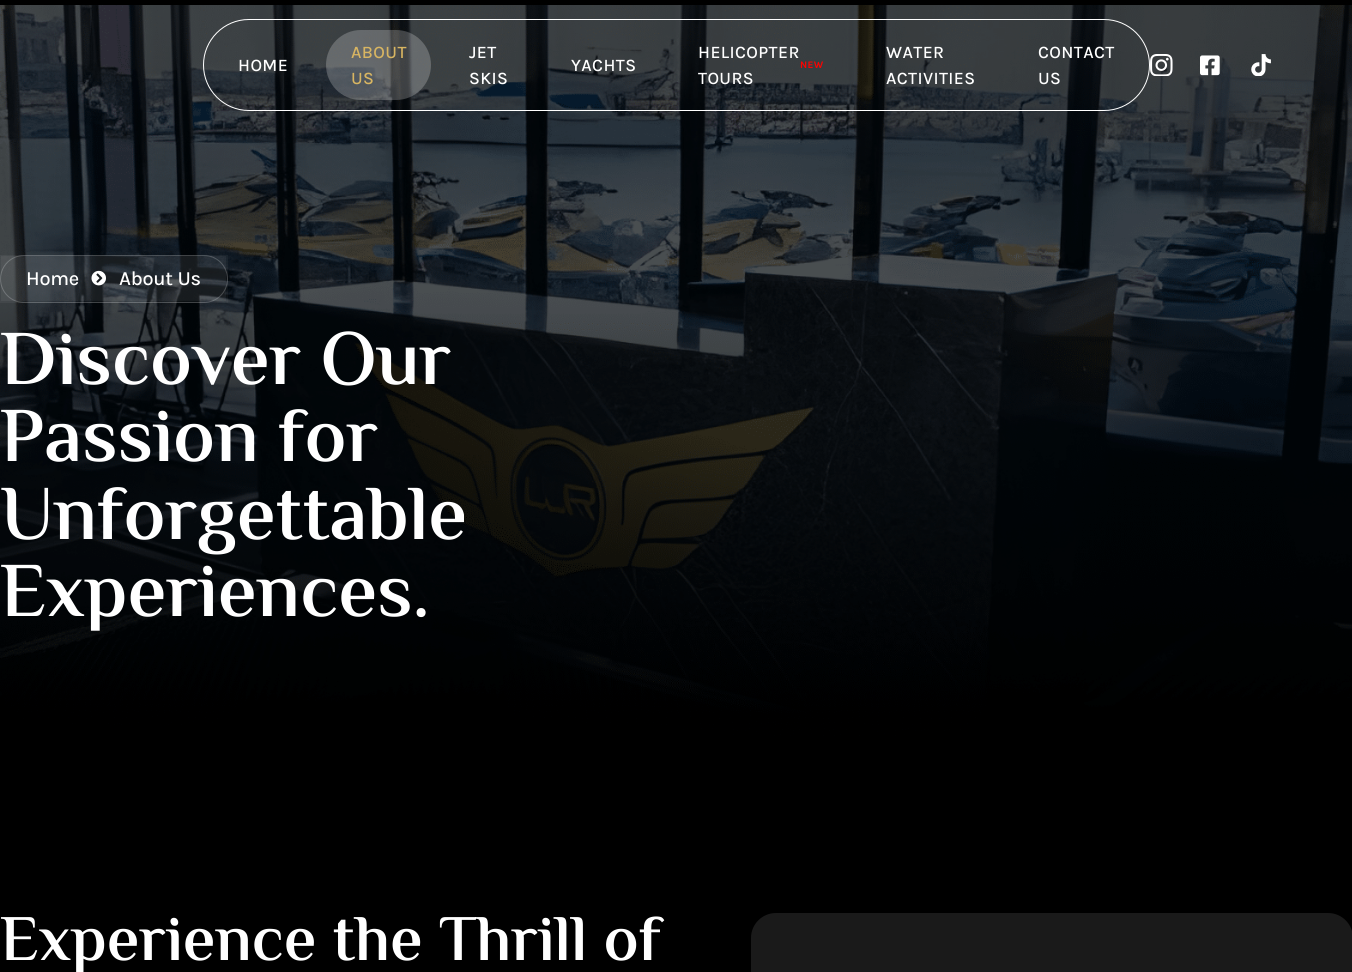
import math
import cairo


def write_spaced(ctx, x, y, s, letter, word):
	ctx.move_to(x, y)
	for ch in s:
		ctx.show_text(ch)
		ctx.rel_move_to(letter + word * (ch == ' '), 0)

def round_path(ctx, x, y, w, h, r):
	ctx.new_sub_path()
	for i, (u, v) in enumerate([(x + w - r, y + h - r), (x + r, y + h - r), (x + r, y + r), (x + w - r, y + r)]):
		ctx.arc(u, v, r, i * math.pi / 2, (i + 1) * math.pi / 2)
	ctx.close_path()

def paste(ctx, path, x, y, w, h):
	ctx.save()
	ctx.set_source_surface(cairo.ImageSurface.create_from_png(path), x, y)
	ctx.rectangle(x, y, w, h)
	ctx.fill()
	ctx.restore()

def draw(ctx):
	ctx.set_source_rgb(0, 0, 0)
	ctx.paint()
	paste(ctx, 'media/4.png', 0, 5, 1352, 731)
	round_path(ctx, 203.5, 19.5, 946, 91, 45.5)
	ctx.set_source_rgb(1, 1, 1)
	ctx.set_line_width(1)
	ctx.stroke()
	ctx.select_font_face('Karla Medium')
	ctx.set_font_size(17.5)
	write_spaced(ctx, 238, 71, 'HOME', 0.4, 0)
	ctx.set_source_rgba(1, 1, 1, 0.22)
	round_path(ctx, 326, 30, 105, 70, 35)
	ctx.fill()
	ctx.set_source_rgb(0.847, 0.71, 0.384)
	write_spaced(ctx, 351, 58, 'ABOUT', 0.4, 0)
	write_spaced(ctx, 351, 84, 'US', 0.4, 0)
	ctx.set_source_rgb(1, 1, 1)
	for x, y, s in [
		(469, 58, 'JET'),
		(469, 84, 'SKIS'),
		(571, 71, 'YACHTS'),
		(698, 58, 'HELICOPTER'),
	]:
		write_spaced(ctx, x, y, s, 0.4, 0)
	ctx.select_font_face('Karla', cairo.FONT_SLANT_NORMAL, cairo.FONT_WEIGHT_BOLD)
	ctx.set_font_size(10)
	ctx.set_source_rgb(1, 0, 0)
	write_spaced(ctx, 800, 68, 'NEW', 0.4, 0)
	ctx.select_font_face('Karla Medium')
	ctx.set_font_size(17.5)
	ctx.set_source_rgb(1, 1, 1)
	for x, y, s in [
		(698, 84, 'TOURS'),
		(886, 58, 'WATER'),
		(886, 84, 'ACTIVITIES'),
		(1038, 58, 'CONTACT'),
		(1038, 84, 'US'),
	]:
		write_spaced(ctx, x, y, s, 0.4, 0)
	paste(ctx, 'media/1.png', 1150, 54, 23, 22)
	paste(ctx, 'media/2.png', 1200, 55, 20, 21)
	paste(ctx, 'media/3.png', 1251, 54, 20, 22)
	ctx.set_source_rgba(1, 1, 1, 0.05)
	ctx.rectangle(0, 255, 228, 48)
	ctx.fill()
	round_path(ctx, 0.5, 255.5, 227, 47, 23.5)
	ctx.set_source_rgba(1, 1, 1, 0.21)
	ctx.stroke()
	ctx.set_source_rgba(1, 1, 1, 0.05)
	ctx.rectangle(1, 256, 225, 45)
	ctx.fill()
	ctx.set_font_size(20)
	ctx.set_source_rgb(1, 1, 1)
	write_spaced(ctx, 26, 285, 'Home', -0.25, 0)
	paste(ctx, 'media/5.png', 91, 270, 15, 16)
	write_spaced(ctx, 119, 285, 'About Us', -0.25, 0)
	ctx.select_font_face('El Messiri SemiBold')
	ctx.set_font_size(77.5)
	for x, y, s in [
		(0, 384, 'Discover Our'),
		(0, 461, 'Passion for'),
		(0, 539, 'Unforgettable'),
		(0, 616, 'Experiences.'),
	]:
		ctx.move_to(x, y)
		ctx.show_text(s)
	ctx.set_font_size(65)
	ctx.move_to(0, 960)
	ctx.show_text('Experience the Thrill of')
	ctx.set_source_rgb(0.102, 0.102, 0.102)
	round_path(ctx, 751, 913, 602, 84, 25)
	ctx.fill()


surface = cairo.ImageSurface(cairo.FORMAT_RGB24, 1352, 972)
ctx = cairo.Context(surface)
options = cairo.FontOptions()
options.set_hint_metrics(cairo.HINT_METRICS_OFF)
options.set_hint_style(cairo.HINT_STYLE_NONE)
ctx.set_font_options(options)
ctx.set_miter_limit(4)
draw(ctx)
surface.write_to_png('image.png')
